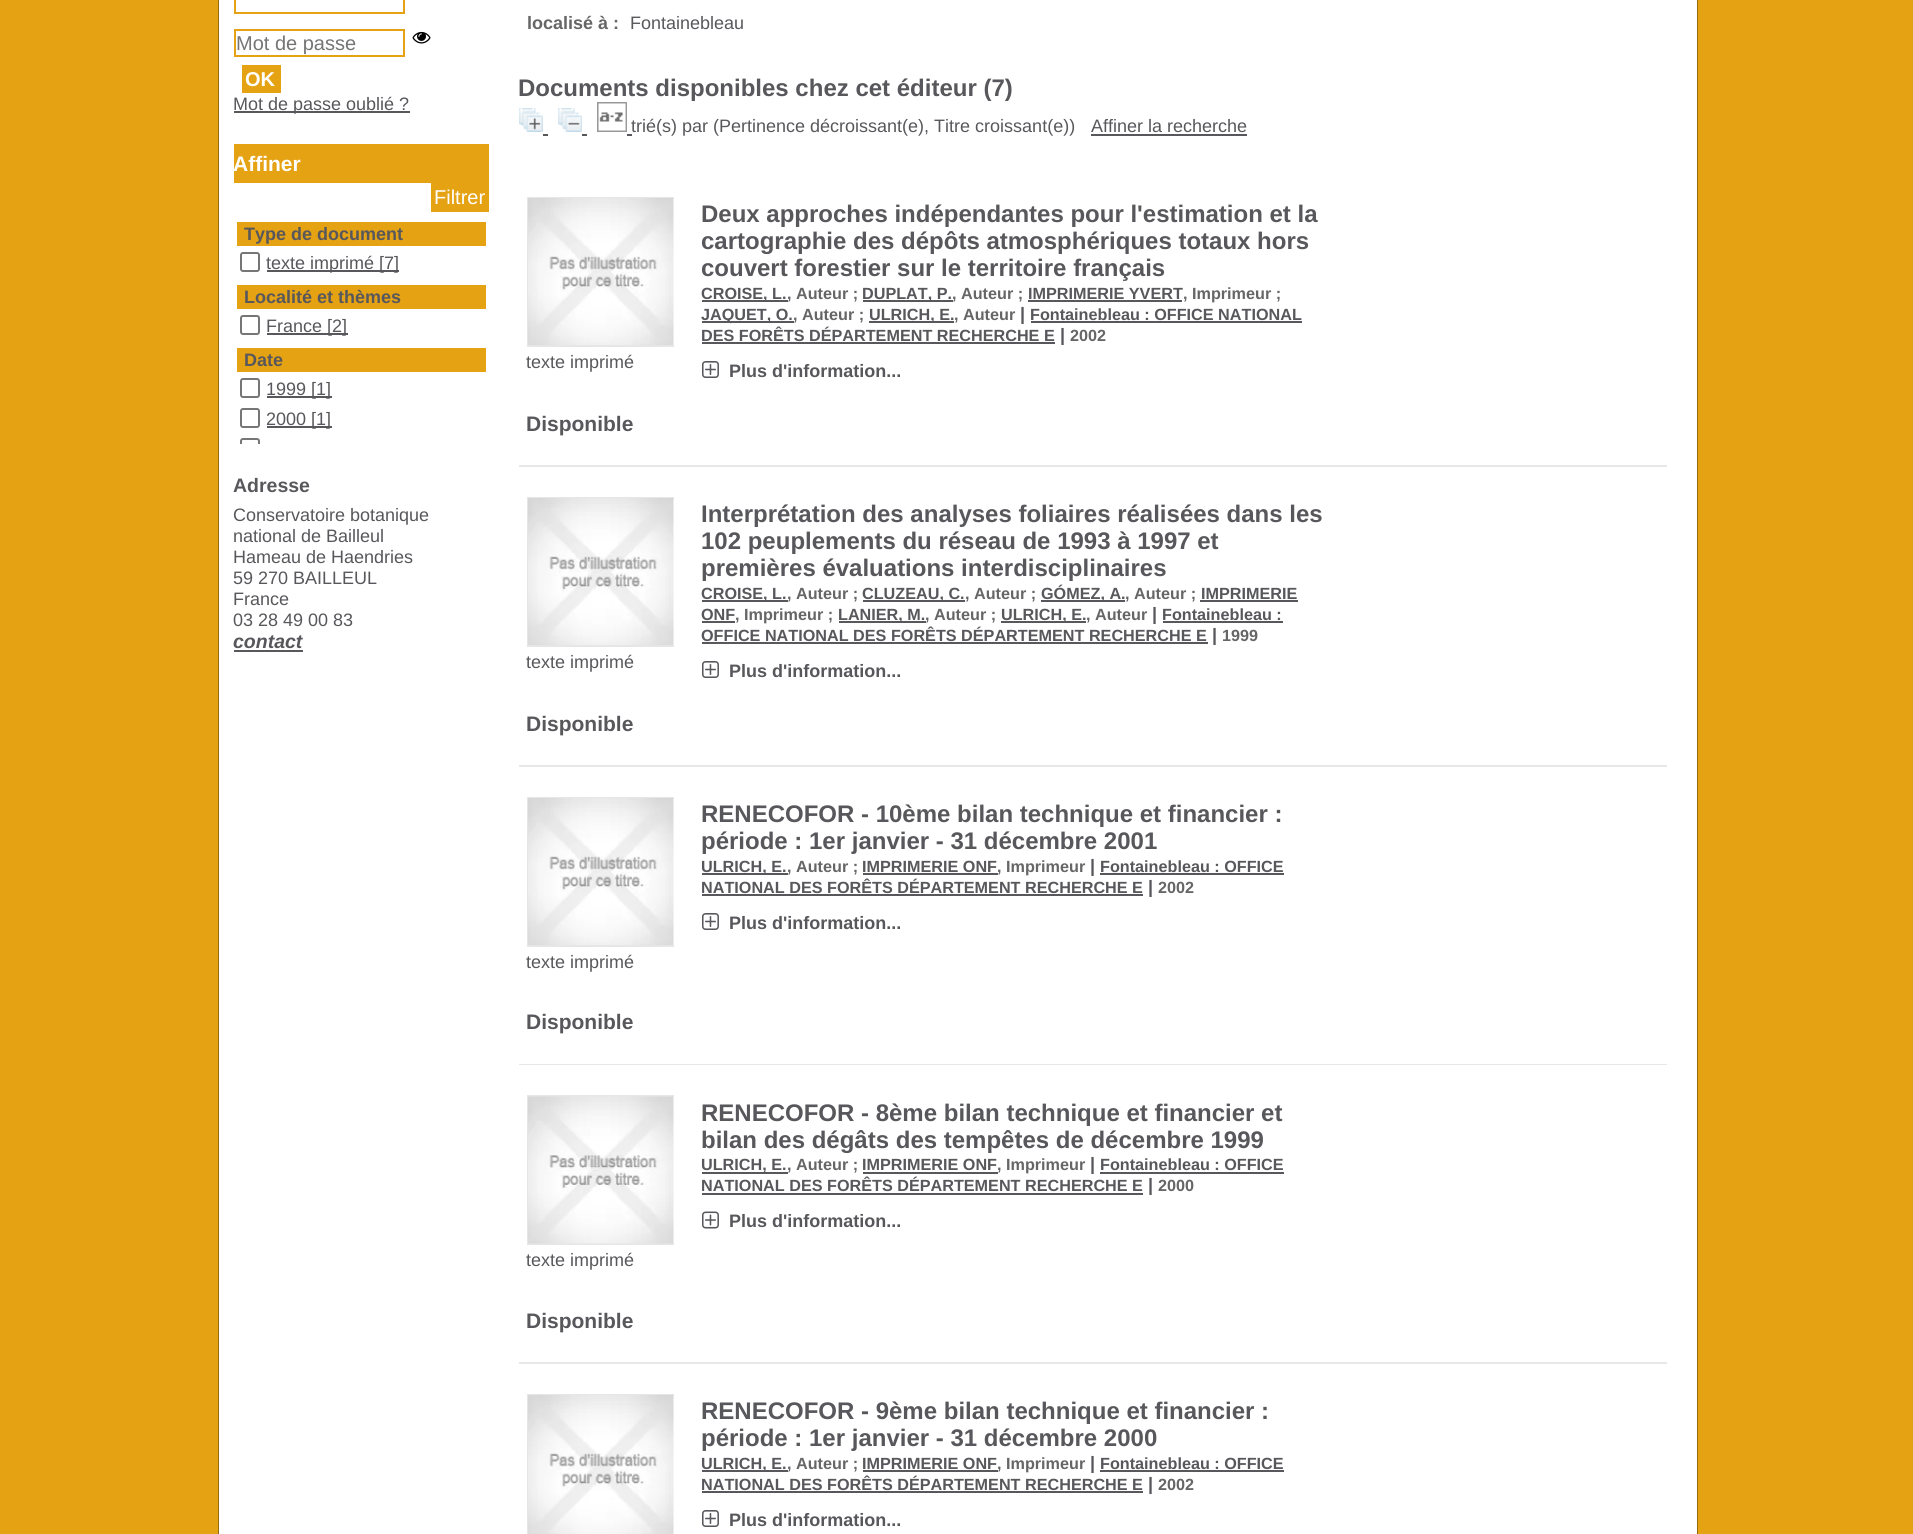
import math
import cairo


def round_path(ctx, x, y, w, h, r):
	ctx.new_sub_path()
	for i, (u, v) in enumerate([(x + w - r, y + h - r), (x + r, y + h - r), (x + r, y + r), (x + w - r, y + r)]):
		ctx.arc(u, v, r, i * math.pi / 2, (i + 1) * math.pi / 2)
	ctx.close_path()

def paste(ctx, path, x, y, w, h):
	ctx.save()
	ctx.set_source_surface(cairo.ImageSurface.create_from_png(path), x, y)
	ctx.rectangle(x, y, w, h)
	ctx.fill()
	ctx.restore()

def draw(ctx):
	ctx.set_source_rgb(0.898, 0.635, 0.075)
	ctx.paint()
	ctx.rectangle(219, -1, 1478, 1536)
	ctx.set_source_rgb(0.592, 0.42, 0.051)
	ctx.stroke()
	ctx.set_source_rgb(1, 1, 1)
	ctx.rectangle(219, 0, 1478, 1534)
	ctx.fill()
	ctx.rectangle(235, -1, 169, 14)
	ctx.set_source_rgb(0.898, 0.635, 0.075)
	ctx.stroke()
	ctx.rectangle(235, 30, 169, 26)
	ctx.stroke()
	ctx.select_font_face('Liberation Sans')
	ctx.set_font_size(20)
	ctx.set_source_rgb(0.459, 0.459, 0.459)
	ctx.move_to(236, 50)
	ctx.show_text('Mot de passe')
	paste(ctx, 'media/1.png', 412, 31, 19, 13)
	ctx.set_source_rgb(0.898, 0.635, 0.075)
	ctx.rectangle(242, 65, 39, 28)
	ctx.fill()
	ctx.select_font_face('Liberation Sans', cairo.FONT_SLANT_NORMAL, cairo.FONT_WEIGHT_BOLD)
	ctx.set_source_rgb(1, 1, 1)
	ctx.move_to(245, 86)
	ctx.show_text('OK')
	ctx.set_source_rgb(0.345, 0.345, 0.361)
	ctx.rectangle(234, 111, 176, 2)
	ctx.fill()
	ctx.select_font_face('Liberation Sans')
	ctx.set_font_size(18)
	ctx.move_to(233, 110)
	ctx.show_text('Mot de passe oublié ?')
	ctx.set_source_rgb(0.898, 0.635, 0.075)
	ctx.rectangle(234, 144, 255, 39)
	ctx.fill()
	ctx.select_font_face('Liberation Sans', cairo.FONT_SLANT_NORMAL, cairo.FONT_WEIGHT_BOLD)
	ctx.set_font_size(21)
	ctx.set_source_rgb(1, 1, 1)
	ctx.move_to(233, 171)
	ctx.show_text('Affiner')
	ctx.set_source_rgb(0.898, 0.635, 0.075)
	ctx.rectangle(431, 183, 58, 29)
	ctx.fill()
	ctx.select_font_face('Liberation Sans')
	ctx.set_font_size(20)
	ctx.set_source_rgb(1, 1, 1)
	ctx.move_to(434, 204)
	ctx.show_text('Filtrer')
	ctx.set_source_rgb(0.898, 0.635, 0.075)
	ctx.rectangle(237, 222, 249, 24)
	ctx.fill()
	ctx.select_font_face('Liberation Sans', cairo.FONT_SLANT_NORMAL, cairo.FONT_WEIGHT_BOLD)
	ctx.set_font_size(18)
	ctx.set_source_rgb(0.345, 0.345, 0.361)
	ctx.move_to(244, 240)
	ctx.show_text('Type de document')
	round_path(ctx, 241, 253, 18, 18, 2)
	ctx.set_source_rgb(0.463, 0.463, 0.463)
	ctx.stroke()
	ctx.set_source_rgb(0.345, 0.345, 0.361)
	ctx.rectangle(267, 270, 132, 2)
	ctx.fill()
	ctx.select_font_face('Liberation Sans')
	ctx.move_to(266, 269)
	ctx.show_text('texte imprimé [7]')
	ctx.set_source_rgb(0.898, 0.635, 0.075)
	ctx.rectangle(237, 285, 249, 24)
	ctx.fill()
	ctx.select_font_face('Liberation Sans', cairo.FONT_SLANT_NORMAL, cairo.FONT_WEIGHT_BOLD)
	ctx.set_source_rgb(0.345, 0.345, 0.361)
	ctx.move_to(244, 303)
	ctx.show_text('Localité et thèmes')
	round_path(ctx, 241, 316, 18, 18, 2)
	ctx.set_source_rgb(0.463, 0.463, 0.463)
	ctx.stroke()
	ctx.set_source_rgb(0.345, 0.345, 0.361)
	ctx.rectangle(267, 333, 81, 2)
	ctx.fill()
	ctx.select_font_face('Liberation Sans')
	ctx.move_to(266, 332)
	ctx.show_text('France [2]')
	ctx.set_source_rgb(0.898, 0.635, 0.075)
	ctx.rectangle(237, 348, 249, 24)
	ctx.fill()
	ctx.select_font_face('Liberation Sans', cairo.FONT_SLANT_NORMAL, cairo.FONT_WEIGHT_BOLD)
	ctx.set_source_rgb(0.345, 0.345, 0.361)
	ctx.move_to(244, 366)
	ctx.show_text('Date')
	round_path(ctx, 241, 379, 18, 18, 2)
	ctx.set_source_rgb(0.463, 0.463, 0.463)
	ctx.stroke()
	ctx.set_source_rgb(0.345, 0.345, 0.361)
	ctx.rectangle(267, 396, 65, 2)
	ctx.fill()
	ctx.select_font_face('Liberation Sans')
	ctx.move_to(266, 395)
	ctx.show_text('1999 [1]')
	round_path(ctx, 241, 409, 18, 18, 2)
	ctx.set_source_rgb(0.463, 0.463, 0.463)
	ctx.stroke()
	ctx.set_source_rgb(0.345, 0.345, 0.361)
	ctx.rectangle(267, 426, 65, 2)
	ctx.fill()
	ctx.move_to(266, 425)
	ctx.show_text('2000 [1]')
	ctx.save()
	ctx.rectangle(234, 144, 255, 300)
	ctx.clip()
	round_path(ctx, 241, 439, 18, 18, 2)
	ctx.set_source_rgb(0.463, 0.463, 0.463)
	ctx.stroke()
	ctx.restore()
	ctx.select_font_face('Liberation Sans', cairo.FONT_SLANT_NORMAL, cairo.FONT_WEIGHT_BOLD)
	ctx.set_font_size(19.5)
	ctx.move_to(233, 492)
	ctx.show_text('Adresse')
	ctx.select_font_face('Liberation Sans')
	ctx.set_font_size(18)
	for x, y, s in [
		(233, 521, 'Conservatoire botanique'),
		(233, 542, 'national de Bailleul'),
		(233, 563, 'Hameau de Haendries'),
		(233, 584, '59 270 BAILLEUL'),
		(233, 605, 'France'),
		(233, 626, '03 28 49 00 83'),
	]:
		ctx.move_to(x, y)
		ctx.show_text(s)
	ctx.select_font_face('Liberation Sans', cairo.FONT_SLANT_ITALIC, cairo.FONT_WEIGHT_BOLD)
	ctx.set_font_size(19.5)
	ctx.move_to(233, 648)
	ctx.show_text('contact')
	ctx.rectangle(234, 650, 69, 2)
	ctx.fill()
	ctx.select_font_face('Liberation Sans', cairo.FONT_SLANT_NORMAL, cairo.FONT_WEIGHT_BOLD)
	ctx.set_font_size(18)
	ctx.set_source_rgb(0.4, 0.4, 0.4)
	ctx.move_to(527, 29)
	ctx.show_text('localisé à :')
	ctx.select_font_face('Liberation Sans')
	ctx.set_source_rgb(0.345, 0.345, 0.361)
	ctx.move_to(630, 29)
	ctx.show_text('Fontainebleau')
	ctx.select_font_face('Liberation Sans', cairo.FONT_SLANT_NORMAL, cairo.FONT_WEIGHT_BOLD)
	ctx.set_font_size(24)
	ctx.move_to(518, 96)
	ctx.show_text('Documents disponibles chez cet éditeur (7)')
	paste(ctx, 'media/2.png', 519, 108, 24, 24)
	paste(ctx, 'media/3.png', 558, 108, 24, 24)
	paste(ctx, 'media/4.png', 597, 102, 30, 30)
	ctx.rectangle(627, 134, 5, 2)
	ctx.fill()
	ctx.select_font_face('Liberation Sans')
	ctx.set_font_size(18)
	ctx.move_to(631, 132)
	ctx.show_text('trié(s) par (Pertinence décroissant(e), Titre croissant(e))')
	ctx.move_to(1091, 132)
	ctx.show_text('Affiner la recherche')
	ctx.rectangle(1091, 134, 156, 2)
	ctx.rectangle(543, 134, 5, 2)
	ctx.rectangle(582, 134, 5, 2)
	ctx.fill()
	ctx.set_source_rgb(0.906, 0.906, 0.906)
	ctx.rectangle(519, 465, 1148, 2)
	ctx.fill()
	ctx.save()
	ctx.rectangle(527, 197, 147, 154)
	ctx.clip()
	ctx.rectangle(528, 198, 148, 148)
	ctx.set_source_rgb(0.902, 0.902, 0.902)
	ctx.stroke()
	ctx.restore()
	paste(ctx, 'media/5.png', 528, 198, 146, 147)
	ctx.set_source_rgb(0.345, 0.345, 0.361)
	ctx.move_to(526, 368)
	ctx.show_text('texte imprimé')
	ctx.select_font_face('Liberation Sans', cairo.FONT_SLANT_NORMAL, cairo.FONT_WEIGHT_BOLD)
	ctx.set_font_size(24)
	for x, y, s in [
		(701, 222, 'Deux approches indépendantes pour l\'estimation et la'),
		(701, 249, 'cartographie des dépôts atmosphériques totaux hors'),
		(701, 276, 'couvert forestier sur le territoire français'),
	]:
		ctx.move_to(x, y)
		ctx.show_text(s)
	ctx.rectangle(702, 300, 86, 2)
	ctx.fill()
	ctx.set_font_size(16.2)
	ctx.move_to(701, 299)
	ctx.show_text('CROISE, L.')
	ctx.set_source_rgb(0.4, 0.4, 0.4)
	ctx.move_to(787, 299)
	ctx.show_text(', Auteur ;')
	ctx.set_source_rgb(0.345, 0.345, 0.361)
	ctx.rectangle(863, 300, 90, 2)
	ctx.fill()
	ctx.move_to(862, 299)
	ctx.show_text('DUPLAT, P.')
	ctx.set_source_rgb(0.4, 0.4, 0.4)
	ctx.move_to(952, 299)
	ctx.show_text(', Auteur ;')
	ctx.set_source_rgb(0.345, 0.345, 0.361)
	ctx.move_to(1028, 299)
	ctx.show_text('IMPRIMERIE YVERT')
	ctx.set_source_rgb(0.4, 0.4, 0.4)
	ctx.move_to(1183, 299)
	ctx.show_text(', Imprimeur ;')
	ctx.set_source_rgb(0.345, 0.345, 0.361)
	ctx.rectangle(1028, 300, 154, 2)
	ctx.fill()
	ctx.rectangle(702, 321, 92, 2)
	ctx.fill()
	ctx.move_to(701, 320)
	ctx.show_text('JAQUET, O.')
	ctx.set_source_rgb(0.4, 0.4, 0.4)
	ctx.move_to(793, 320)
	ctx.show_text(', Auteur ;')
	ctx.set_source_rgb(0.345, 0.345, 0.361)
	ctx.rectangle(869, 321, 85, 2)
	ctx.fill()
	ctx.move_to(869, 320)
	ctx.show_text('ULRICH, E.')
	ctx.set_source_rgb(0.4, 0.4, 0.4)
	ctx.move_to(954, 320)
	ctx.show_text(', Auteur')
	ctx.set_font_size(18)
	ctx.set_source_rgb(0.345, 0.345, 0.361)
	ctx.move_to(1020, 320)
	ctx.show_text('|')
	ctx.set_font_size(16.2)
	ctx.move_to(1030, 320)
	ctx.show_text('Fontainebleau : OFFICE NATIONAL')
	ctx.rectangle(1031, 321, 271, 2)
	ctx.fill()
	ctx.move_to(701, 341)
	ctx.show_text('DES FORÊTS DÉPARTEMENT RECHERCHE E')
	ctx.rectangle(702, 342, 353, 2)
	ctx.fill()
	ctx.set_font_size(18)
	ctx.move_to(1060, 341)
	ctx.show_text('|')
	ctx.set_font_size(16.2)
	ctx.set_source_rgb(0.4, 0.4, 0.4)
	ctx.move_to(1070, 341)
	ctx.show_text('2002')
	paste(ctx, 'media/6.png', 702, 361, 17, 17)
	ctx.set_font_size(18)
	ctx.set_source_rgb(0.345, 0.345, 0.361)
	ctx.move_to(729, 377)
	ctx.show_text('Plus d\'information...')
	ctx.set_font_size(21)
	ctx.move_to(526, 431)
	ctx.show_text('Disponible')
	ctx.set_source_rgb(0.906, 0.906, 0.906)
	ctx.rectangle(519, 765, 1148, 2)
	ctx.fill()
	ctx.save()
	ctx.rectangle(527, 497, 147, 154)
	ctx.clip()
	ctx.rectangle(528, 498, 148, 148)
	ctx.set_source_rgb(0.902, 0.902, 0.902)
	ctx.stroke()
	ctx.restore()
	paste(ctx, 'media/5.png', 528, 498, 146, 147)
	ctx.select_font_face('Liberation Sans')
	ctx.set_font_size(18)
	ctx.set_source_rgb(0.345, 0.345, 0.361)
	ctx.move_to(526, 668)
	ctx.show_text('texte imprimé')
	ctx.select_font_face('Liberation Sans', cairo.FONT_SLANT_NORMAL, cairo.FONT_WEIGHT_BOLD)
	ctx.set_font_size(24)
	for x, y, s in [
		(701, 522, 'Interprétation des analyses foliaires réalisées dans les'),
		(701, 549, '102 peuplements du réseau de 1993 à 1997 et'),
		(701, 576, 'premières évaluations interdisciplinaires'),
	]:
		ctx.move_to(x, y)
		ctx.show_text(s)
	ctx.rectangle(702, 600, 86, 2)
	ctx.fill()
	ctx.set_font_size(16.2)
	ctx.move_to(701, 599)
	ctx.show_text('CROISE, L.')
	ctx.set_source_rgb(0.4, 0.4, 0.4)
	ctx.move_to(787, 599)
	ctx.show_text(', Auteur ;')
	ctx.set_source_rgb(0.345, 0.345, 0.361)
	ctx.rectangle(863, 600, 102, 2)
	ctx.fill()
	ctx.move_to(862, 599)
	ctx.show_text('CLUZEAU, C.')
	ctx.set_source_rgb(0.4, 0.4, 0.4)
	ctx.move_to(965, 599)
	ctx.show_text(', Auteur ;')
	ctx.set_source_rgb(0.345, 0.345, 0.361)
	ctx.rectangle(1041, 600, 84, 2)
	ctx.fill()
	ctx.move_to(1041, 599)
	ctx.show_text('GÓMEZ, A.')
	ctx.set_source_rgb(0.4, 0.4, 0.4)
	ctx.move_to(1125, 599)
	ctx.show_text(', Auteur ;')
	ctx.set_source_rgb(0.345, 0.345, 0.361)
	ctx.move_to(1201, 599)
	ctx.show_text('IMPRIMERIE')
	ctx.rectangle(1200, 600, 98, 2)
	ctx.fill()
	ctx.move_to(701, 620)
	ctx.show_text('ONF')
	ctx.set_source_rgb(0.4, 0.4, 0.4)
	ctx.move_to(735, 620)
	ctx.show_text(', Imprimeur ;')
	ctx.set_source_rgb(0.345, 0.345, 0.361)
	ctx.rectangle(702, 621, 33, 2)
	ctx.fill()
	ctx.rectangle(839, 621, 87, 2)
	ctx.fill()
	ctx.move_to(838, 620)
	ctx.show_text('LANIER, M.')
	ctx.set_source_rgb(0.4, 0.4, 0.4)
	ctx.move_to(925, 620)
	ctx.show_text(', Auteur ;')
	ctx.set_source_rgb(0.345, 0.345, 0.361)
	ctx.rectangle(1001, 621, 85, 2)
	ctx.fill()
	ctx.move_to(1001, 620)
	ctx.show_text('ULRICH, E.')
	ctx.set_source_rgb(0.4, 0.4, 0.4)
	ctx.move_to(1086, 620)
	ctx.show_text(', Auteur')
	ctx.set_font_size(18)
	ctx.set_source_rgb(0.345, 0.345, 0.361)
	ctx.move_to(1152, 620)
	ctx.show_text('|')
	ctx.set_font_size(16.2)
	ctx.move_to(1162, 620)
	ctx.show_text('Fontainebleau :')
	ctx.rectangle(1163, 621, 120, 2)
	ctx.fill()
	ctx.move_to(701, 641)
	ctx.show_text('OFFICE NATIONAL DES FORÊTS DÉPARTEMENT RECHERCHE E')
	ctx.rectangle(702, 642, 506, 2)
	ctx.fill()
	ctx.set_font_size(18)
	ctx.move_to(1212, 641)
	ctx.show_text('|')
	ctx.set_font_size(16.2)
	ctx.set_source_rgb(0.4, 0.4, 0.4)
	ctx.move_to(1222, 641)
	ctx.show_text('1999')
	paste(ctx, 'media/6.png', 702, 661, 17, 17)
	ctx.set_font_size(18)
	ctx.set_source_rgb(0.345, 0.345, 0.361)
	ctx.move_to(729, 677)
	ctx.show_text('Plus d\'information...')
	ctx.set_font_size(21)
	ctx.move_to(526, 731)
	ctx.show_text('Disponible')
	ctx.set_source_rgb(0.906, 0.906, 0.906)
	ctx.rectangle(519, 1064, 1148, 1)
	ctx.fill()
	ctx.set_font_size(24)
	ctx.set_source_rgb(0.345, 0.345, 0.361)
	ctx.move_to(701, 822)
	ctx.show_text('RENECOFOR - 10ème bilan technique et financier :')
	ctx.move_to(701, 849)
	ctx.show_text('période : 1er janvier - 31 décembre 2001')
	ctx.rectangle(702, 873, 86, 2)
	ctx.fill()
	ctx.set_font_size(16.2)
	ctx.move_to(701, 872)
	ctx.show_text('ULRICH, E.')
	ctx.set_source_rgb(0.4, 0.4, 0.4)
	ctx.move_to(787, 872)
	ctx.show_text(', Auteur ;')
	ctx.set_source_rgb(0.345, 0.345, 0.361)
	ctx.move_to(862, 872)
	ctx.show_text('IMPRIMERIE ONF')
	ctx.set_source_rgb(0.4, 0.4, 0.4)
	ctx.move_to(997, 872)
	ctx.show_text(', Imprimeur')
	ctx.set_source_rgb(0.345, 0.345, 0.361)
	ctx.rectangle(863, 873, 135, 2)
	ctx.fill()
	ctx.set_font_size(18)
	ctx.move_to(1090, 872)
	ctx.show_text('|')
	ctx.set_font_size(16.2)
	ctx.move_to(1100, 872)
	ctx.show_text('Fontainebleau : OFFICE')
	ctx.rectangle(1100, 873, 184, 2)
	ctx.fill()
	ctx.move_to(701, 893)
	ctx.show_text('NATIONAL DES FORÊTS DÉPARTEMENT RECHERCHE E')
	ctx.rectangle(702, 894, 441, 2)
	ctx.fill()
	ctx.set_font_size(18)
	ctx.move_to(1148, 893)
	ctx.show_text('|')
	ctx.set_font_size(16.2)
	ctx.set_source_rgb(0.4, 0.4, 0.4)
	ctx.move_to(1158, 893)
	ctx.show_text('2002')
	paste(ctx, 'media/6.png', 702, 913, 17, 17)
	ctx.set_font_size(18)
	ctx.set_source_rgb(0.345, 0.345, 0.361)
	ctx.move_to(729, 929)
	ctx.show_text('Plus d\'information...')
	ctx.save()
	ctx.rectangle(527, 797, 147, 154)
	ctx.clip()
	ctx.rectangle(528, 798, 148, 148)
	ctx.set_source_rgb(0.902, 0.902, 0.902)
	ctx.stroke()
	ctx.restore()
	paste(ctx, 'media/5.png', 528, 798, 146, 147)
	ctx.select_font_face('Liberation Sans')
	ctx.move_to(526, 968)
	ctx.show_text('texte imprimé')
	ctx.select_font_face('Liberation Sans', cairo.FONT_SLANT_NORMAL, cairo.FONT_WEIGHT_BOLD)
	ctx.set_font_size(21)
	ctx.move_to(526, 1029)
	ctx.show_text('Disponible')
	ctx.set_source_rgb(0.906, 0.906, 0.906)
	ctx.rectangle(519, 1362, 1148, 2)
	ctx.fill()
	ctx.set_font_size(24)
	ctx.set_source_rgb(0.345, 0.345, 0.361)
	ctx.move_to(701, 1121)
	ctx.show_text('RENECOFOR - 8ème bilan technique et financier et')
	ctx.move_to(701, 1148)
	ctx.show_text('bilan des dégâts des tempêtes de décembre 1999')
	ctx.rectangle(702, 1172, 86, 2)
	ctx.fill()
	ctx.set_font_size(16.2)
	ctx.move_to(701, 1170)
	ctx.show_text('ULRICH, E.')
	ctx.set_source_rgb(0.4, 0.4, 0.4)
	ctx.move_to(787, 1170)
	ctx.show_text(', Auteur ;')
	ctx.set_source_rgb(0.345, 0.345, 0.361)
	ctx.move_to(862, 1170)
	ctx.show_text('IMPRIMERIE ONF')
	ctx.set_source_rgb(0.4, 0.4, 0.4)
	ctx.move_to(997, 1170)
	ctx.show_text(', Imprimeur')
	ctx.set_source_rgb(0.345, 0.345, 0.361)
	ctx.rectangle(863, 1172, 135, 2)
	ctx.fill()
	ctx.set_font_size(18)
	ctx.move_to(1090, 1170)
	ctx.show_text('|')
	ctx.set_font_size(16.2)
	ctx.move_to(1100, 1170)
	ctx.show_text('Fontainebleau : OFFICE')
	ctx.rectangle(1100, 1172, 184, 2)
	ctx.fill()
	ctx.move_to(701, 1191)
	ctx.show_text('NATIONAL DES FORÊTS DÉPARTEMENT RECHERCHE E')
	ctx.rectangle(702, 1193, 441, 2)
	ctx.fill()
	ctx.set_font_size(18)
	ctx.move_to(1148, 1191)
	ctx.show_text('|')
	ctx.set_font_size(16.2)
	ctx.set_source_rgb(0.4, 0.4, 0.4)
	ctx.move_to(1158, 1191)
	ctx.show_text('2000')
	paste(ctx, 'media/7.png', 702, 1211, 17, 18)
	ctx.set_font_size(18)
	ctx.set_source_rgb(0.345, 0.345, 0.361)
	ctx.move_to(729, 1227)
	ctx.show_text('Plus d\'information...')
	ctx.save()
	ctx.rectangle(527, 1095, 147, 155)
	ctx.clip()
	ctx.rectangle(528, 1096, 148, 148)
	ctx.set_source_rgb(0.902, 0.902, 0.902)
	ctx.stroke()
	ctx.restore()
	paste(ctx, 'media/8.png', 528, 1096, 146, 148)
	ctx.select_font_face('Liberation Sans')
	ctx.move_to(526, 1266)
	ctx.show_text('texte imprimé')
	ctx.select_font_face('Liberation Sans', cairo.FONT_SLANT_NORMAL, cairo.FONT_WEIGHT_BOLD)
	ctx.set_font_size(21)
	ctx.move_to(526, 1328)
	ctx.show_text('Disponible')
	ctx.save()
	ctx.rectangle(527, 1394, 147, 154)
	ctx.clip()
	ctx.rectangle(528, 1395, 148, 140)
	ctx.set_source_rgb(0.902, 0.902, 0.902)
	ctx.stroke()
	ctx.restore()
	paste(ctx, 'media/9.png', 528, 1395, 146, 139)
	ctx.set_font_size(24)
	ctx.move_to(701, 1419)
	ctx.show_text('RENECOFOR - 9ème bilan technique et financier :')
	ctx.move_to(701, 1446)
	ctx.show_text('période : 1er janvier - 31 décembre 2000')
	ctx.rectangle(702, 1470, 86, 2)
	ctx.fill()
	ctx.set_font_size(16.2)
	ctx.move_to(701, 1469)
	ctx.show_text('ULRICH, E.')
	ctx.set_source_rgb(0.4, 0.4, 0.4)
	ctx.move_to(787, 1469)
	ctx.show_text(', Auteur ;')
	ctx.set_source_rgb(0.345, 0.345, 0.361)
	ctx.move_to(862, 1469)
	ctx.show_text('IMPRIMERIE ONF')
	ctx.set_source_rgb(0.4, 0.4, 0.4)
	ctx.move_to(997, 1469)
	ctx.show_text(', Imprimeur')
	ctx.set_source_rgb(0.345, 0.345, 0.361)
	ctx.rectangle(863, 1470, 135, 2)
	ctx.fill()
	ctx.set_font_size(18)
	ctx.move_to(1090, 1469)
	ctx.show_text('|')
	ctx.set_font_size(16.2)
	ctx.move_to(1100, 1469)
	ctx.show_text('Fontainebleau : OFFICE')
	ctx.rectangle(1100, 1470, 184, 2)
	ctx.fill()
	ctx.move_to(701, 1490)
	ctx.show_text('NATIONAL DES FORÊTS DÉPARTEMENT RECHERCHE E')
	ctx.rectangle(702, 1491, 441, 2)
	ctx.fill()
	ctx.set_font_size(18)
	ctx.move_to(1148, 1490)
	ctx.show_text('|')
	ctx.set_font_size(16.2)
	ctx.set_source_rgb(0.4, 0.4, 0.4)
	ctx.move_to(1158, 1490)
	ctx.show_text('2002')
	paste(ctx, 'media/6.png', 702, 1510, 17, 17)
	ctx.set_font_size(18)
	ctx.set_source_rgb(0.345, 0.345, 0.361)
	ctx.move_to(729, 1526)
	ctx.show_text('Plus d\'information...')


surface = cairo.ImageSurface(cairo.FORMAT_RGB24, 1913, 1534)
ctx = cairo.Context(surface)
options = cairo.FontOptions()
options.set_hint_metrics(cairo.HINT_METRICS_OFF)
options.set_hint_style(cairo.HINT_STYLE_NONE)
ctx.set_font_options(options)
ctx.set_miter_limit(4)
draw(ctx)
surface.write_to_png('image.png')
